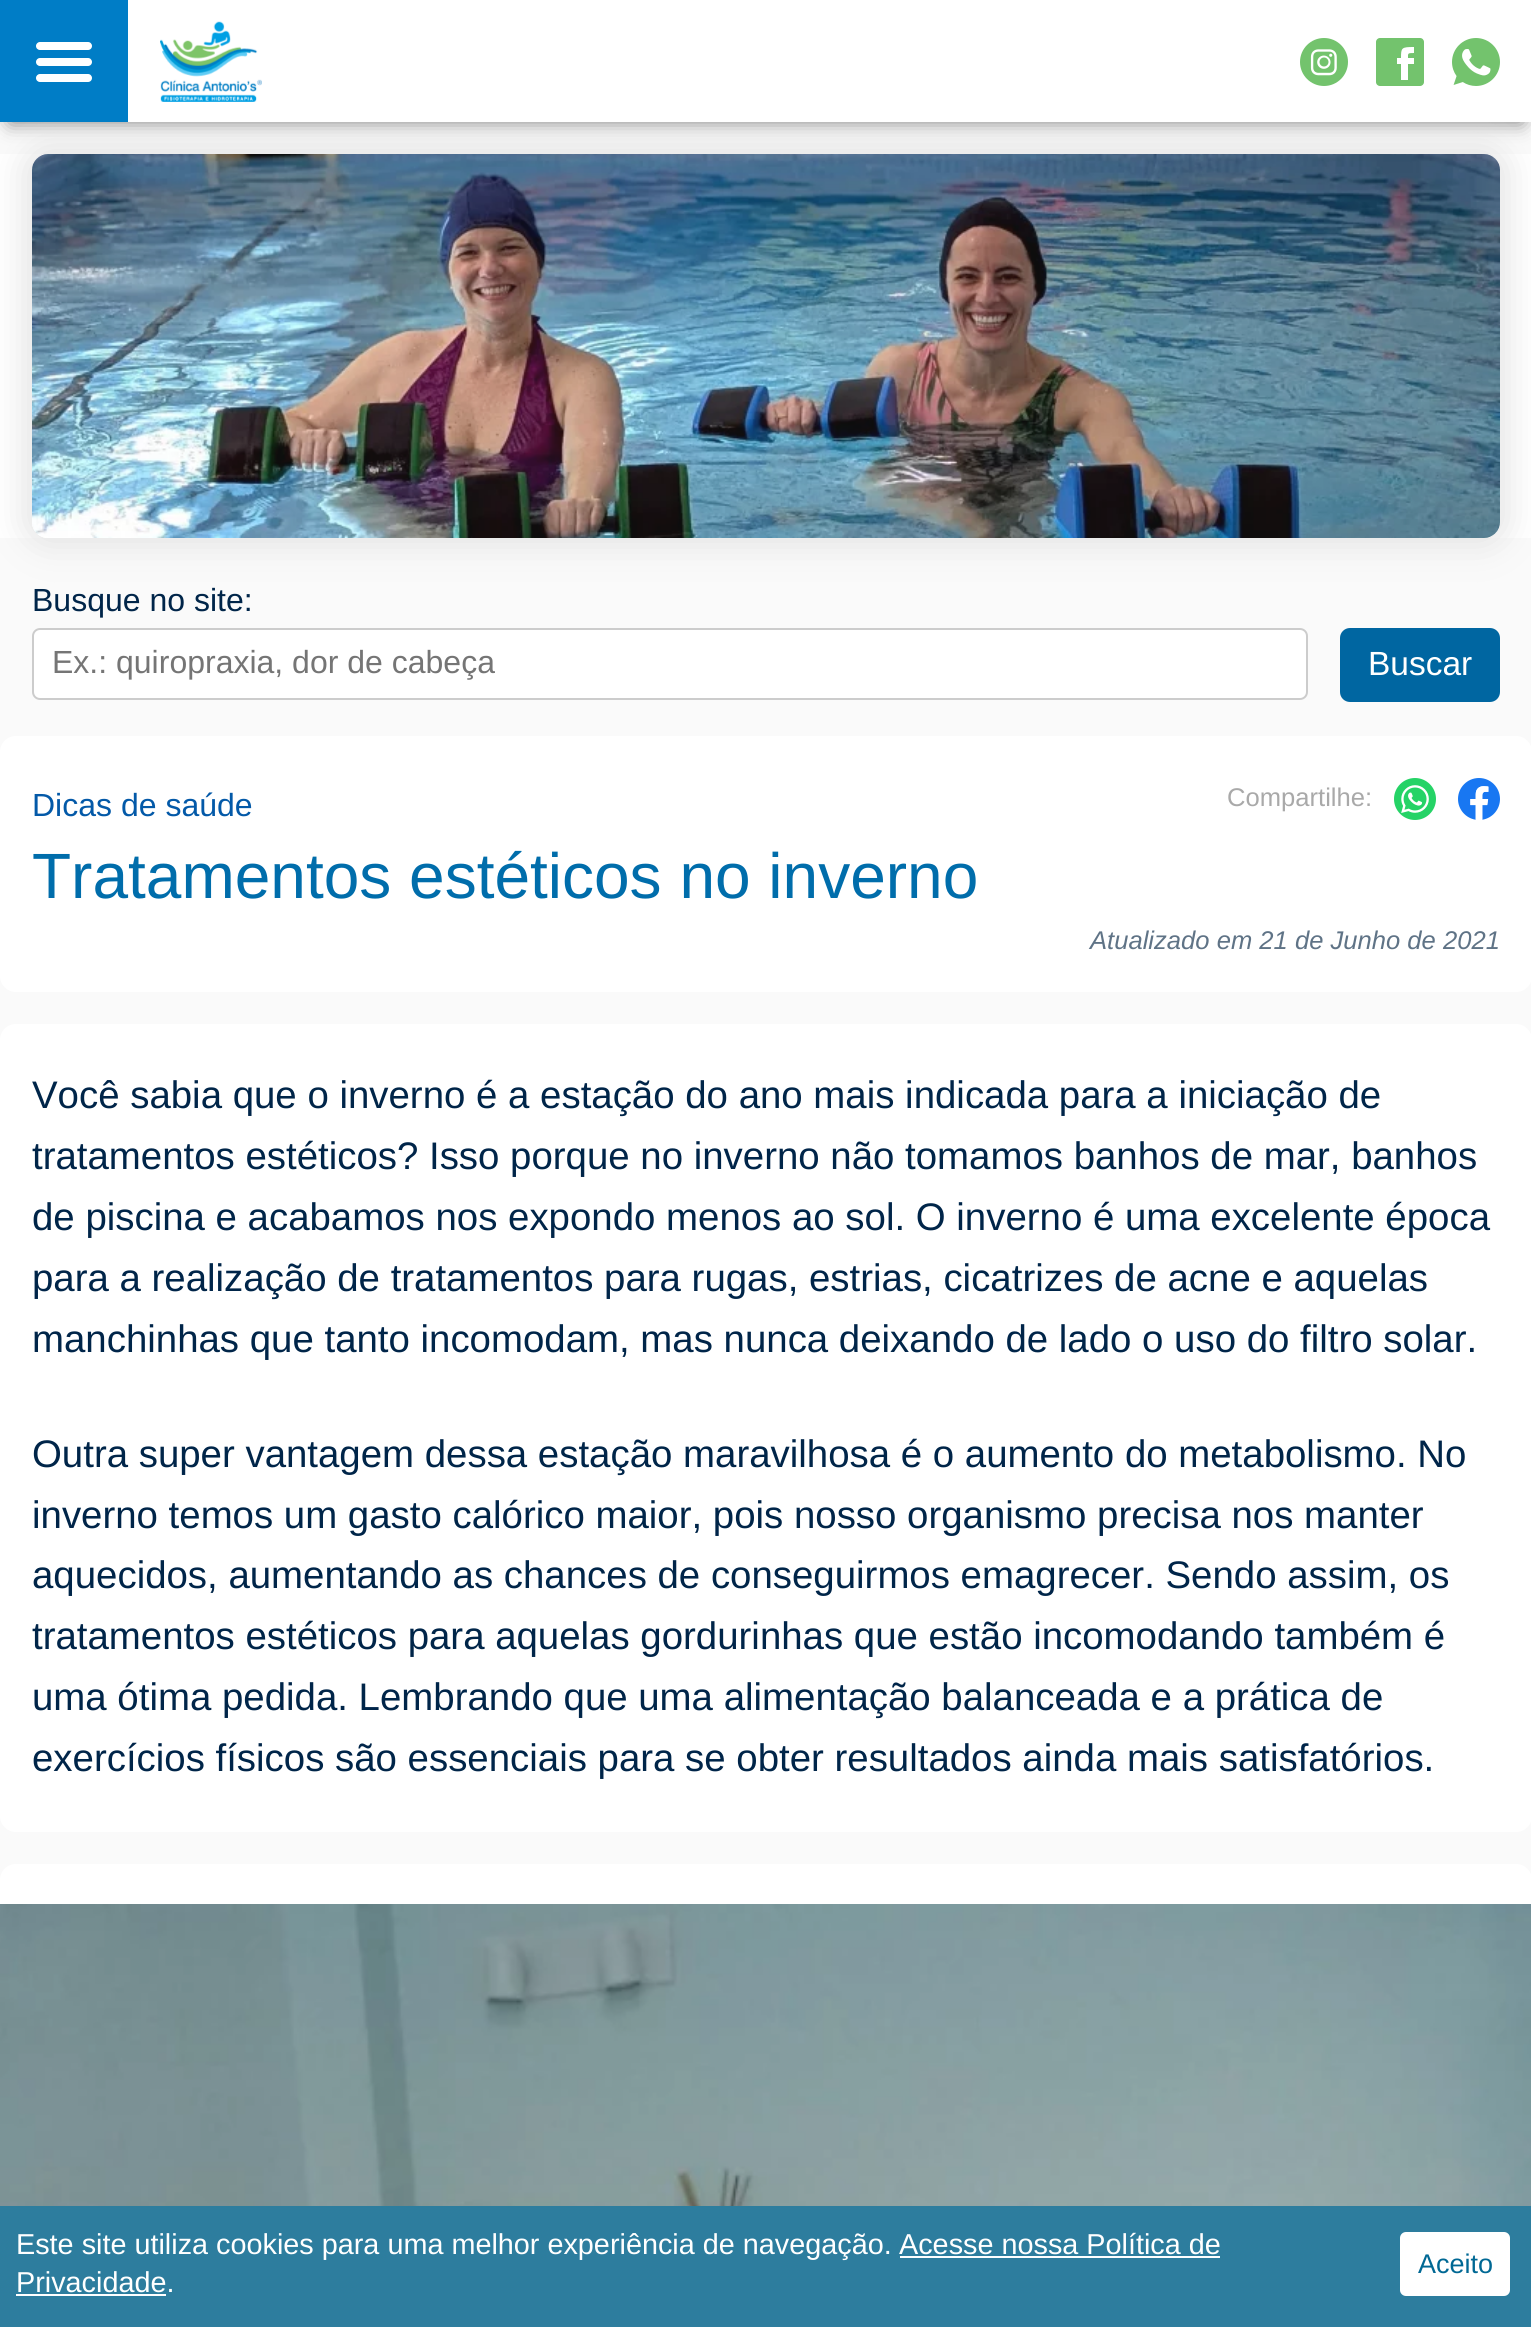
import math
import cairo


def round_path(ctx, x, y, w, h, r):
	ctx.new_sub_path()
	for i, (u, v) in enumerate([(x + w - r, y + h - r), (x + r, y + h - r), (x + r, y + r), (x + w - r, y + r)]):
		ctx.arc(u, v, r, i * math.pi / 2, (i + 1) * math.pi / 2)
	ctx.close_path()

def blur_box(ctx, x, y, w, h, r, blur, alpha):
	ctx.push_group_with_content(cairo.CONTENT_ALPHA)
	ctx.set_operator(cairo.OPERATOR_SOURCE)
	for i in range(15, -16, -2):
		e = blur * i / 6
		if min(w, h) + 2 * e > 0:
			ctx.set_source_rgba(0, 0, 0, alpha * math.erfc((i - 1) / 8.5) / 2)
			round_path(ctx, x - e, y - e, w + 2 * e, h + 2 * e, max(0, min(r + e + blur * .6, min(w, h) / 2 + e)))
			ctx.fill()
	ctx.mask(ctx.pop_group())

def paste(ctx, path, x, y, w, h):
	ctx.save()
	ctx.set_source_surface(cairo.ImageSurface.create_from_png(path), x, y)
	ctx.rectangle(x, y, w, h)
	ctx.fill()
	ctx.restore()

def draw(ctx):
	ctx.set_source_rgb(0.98, 0.98, 0.98)
	ctx.paint()
	ctx.set_source_rgb(0, 0, 0)
	blur_box(ctx, 10, 20, 1512, 102, 0, 10, 0.53)
	ctx.set_source_rgb(1, 1, 1)
	ctx.rectangle(0, 154, 1531, 384)
	ctx.fill()
	ctx.save()
	ctx.set_fill_rule(cairo.FILL_RULE_EVEN_ODD)
	ctx.new_path()
	ctx.move_to(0, 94)
	ctx.line_to(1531, 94)
	ctx.line_to(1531, 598)
	ctx.line_to(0, 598)
	ctx.close_path()
	ctx.move_to(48, 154)
	ctx.line_to(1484, 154)
	ctx.curve_to(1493, 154, 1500, 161, 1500, 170)
	ctx.line_to(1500, 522)
	ctx.curve_to(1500, 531, 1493, 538, 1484, 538)
	ctx.line_to(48, 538)
	ctx.curve_to(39, 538, 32, 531, 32, 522)
	ctx.line_to(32, 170)
	ctx.curve_to(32, 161, 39, 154, 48, 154)
	ctx.close_path()
	ctx.clip()
	ctx.set_source_rgb(0.894, 0.894, 0.894)
	blur_box(ctx, 24, 146, 1484, 400, 24, 17, 1)
	ctx.restore()
	ctx.rectangle(128, 0, 1403, 122)
	ctx.fill()
	ctx.set_source_rgb(0, 0.49, 0.776)
	ctx.rectangle(0, 0, 128, 122)
	ctx.fill()
	paste(ctx, 'media/1.png', 36, 42, 56, 40)
	paste(ctx, 'media/2.png', 160, 21, 102, 81)
	paste(ctx, 'media/3.png', 1300, 38, 48, 48)
	paste(ctx, 'media/4.png', 1376, 38, 48, 48)
	paste(ctx, 'media/5.png', 1452, 38, 48, 48)
	paste(ctx, 'media/6.png', 32, 154, 1468, 384)
	ctx.select_font_face('Liberation Sans')
	ctx.set_font_size(32)
	ctx.set_source_rgb(0, 0.145, 0.286)
	ctx.move_to(32, 611)
	ctx.show_text('Busque no site:')
	ctx.set_source_rgb(1, 1, 1)
	round_path(ctx, 33, 629, 1274, 70, 7)
	ctx.fill_preserve()
	ctx.set_source_rgb(0.8, 0.8, 0.8)
	ctx.stroke()
	ctx.set_source_rgb(0.459, 0.459, 0.459)
	ctx.move_to(52, 673)
	ctx.show_text('Ex.: quiropraxia, dor de cabeça')
	ctx.set_source_rgb(0, 0.4, 0.631)
	round_path(ctx, 1341, 629, 158, 72, 9)
	ctx.fill_preserve()
	ctx.stroke()
	ctx.set_font_size(33.5)
	ctx.set_source_rgb(1, 1, 1)
	ctx.move_to(1368, 675)
	ctx.show_text('Buscar')
	round_path(ctx, 0, 736, 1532, 256, 16)
	ctx.fill()
	ctx.set_font_size(32)
	ctx.set_source_rgb(0.012, 0.349, 0.659)
	ctx.move_to(32, 816)
	ctx.show_text('Dicas de saúde')
	ctx.set_font_size(25.6)
	ctx.set_source_rgb(0.663, 0.663, 0.663)
	ctx.move_to(1227, 806)
	ctx.show_text('Compartilhe:')
	paste(ctx, 'media/7.png', 1394, 778, 42, 42)
	paste(ctx, 'media/8.png', 1458, 778, 42, 42)
	ctx.set_font_size(64)
	ctx.set_source_rgb(0, 0.427, 0.671)
	ctx.move_to(32, 898)
	ctx.show_text('Tratamentos estéticos no inverno')
	ctx.select_font_face('Liberation Sans', cairo.FONT_SLANT_ITALIC)
	ctx.set_font_size(25.6)
	ctx.set_source_rgb(0.373, 0.451, 0.525)
	ctx.move_to(1090, 949)
	ctx.show_text('Atualizado em 21 de Junho de 2021')
	ctx.set_source_rgb(1, 1, 1)
	round_path(ctx, 0, 1024, 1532, 808, 16)
	ctx.fill()
	ctx.select_font_face('Liberation Sans')
	ctx.set_font_size(38.4)
	ctx.set_source_rgb(0, 0.145, 0.286)
	for x, y, s in [
		(32, 1108, 'Você sabia que o inverno é a estação do ano mais indicada para a iniciação de'),
		(32, 1169, 'tratamentos estéticos? Isso porque no inverno não tomamos banhos de mar, banhos'),
		(32, 1230, 'de piscina e acabamos nos expondo menos ao sol. O inverno é uma excelente época'),
		(32, 1291, 'para a realização de tratamentos para rugas, estrias, cicatrizes de acne e aquelas'),
		(32, 1352, 'manchinhas que tanto incomodam, mas nunca deixando de lado o uso do filtro solar.'),
		(32, 1467, 'Outra super vantagem dessa estação maravilhosa é o aumento do metabolismo. No'),
		(32, 1528, 'inverno temos um gasto calórico maior, pois nosso organismo precisa nos manter'),
		(32, 1588, 'aquecidos, aumentando as chances de conseguirmos emagrecer. Sendo assim, os'),
		(32, 1649, 'tratamentos estéticos para aquelas gordurinhas que estão incomodando também é'),
		(32, 1710, 'uma ótima pedida. Lembrando que uma alimentação balanceada e a prática de'),
		(32, 1771, 'exercícios físicos são essenciais para se obter resultados ainda mais satisfatórios.'),
	]:
		ctx.move_to(x, y)
		ctx.show_text(s)
	ctx.set_source_rgb(1, 1, 1)
	round_path(ctx, 0, 1864, 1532, 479, 16)
	ctx.fill()
	paste(ctx, 'media/9.png', 0, 1904, 1531, 302)
	ctx.set_source_rgb(0.176, 0.49, 0.62)
	ctx.rectangle(0, 2206, 1531, 121)
	ctx.fill()
	ctx.set_font_size(28.8)
	ctx.set_source_rgb(1, 1, 1)
	ctx.move_to(16, 2254)
	ctx.show_text('Este site utiliza cookies para uma melhor experiência de navegação.')
	ctx.move_to(899, 2254)
	ctx.show_text('Acesse nossa Política de')
	ctx.rectangle(900, 2256, 320, 2)
	ctx.fill()
	ctx.move_to(16, 2292)
	ctx.show_text('Privacidade.')
	ctx.rectangle(16, 2294, 150, 2)
	ctx.fill()
	round_path(ctx, 1401, 2233, 108, 62, 5)
	ctx.fill_preserve()
	ctx.stroke()
	ctx.set_font_size(27)
	ctx.set_source_rgb(0, 0.408, 0.58)
	ctx.move_to(1418, 2273)
	ctx.show_text('Aceito')


surface = cairo.ImageSurface(cairo.FORMAT_RGB24, 1531, 2327)
ctx = cairo.Context(surface)
options = cairo.FontOptions()
options.set_hint_metrics(cairo.HINT_METRICS_OFF)
options.set_hint_style(cairo.HINT_STYLE_NONE)
ctx.set_font_options(options)
ctx.set_miter_limit(4)
draw(ctx)
surface.write_to_png('image.png')
